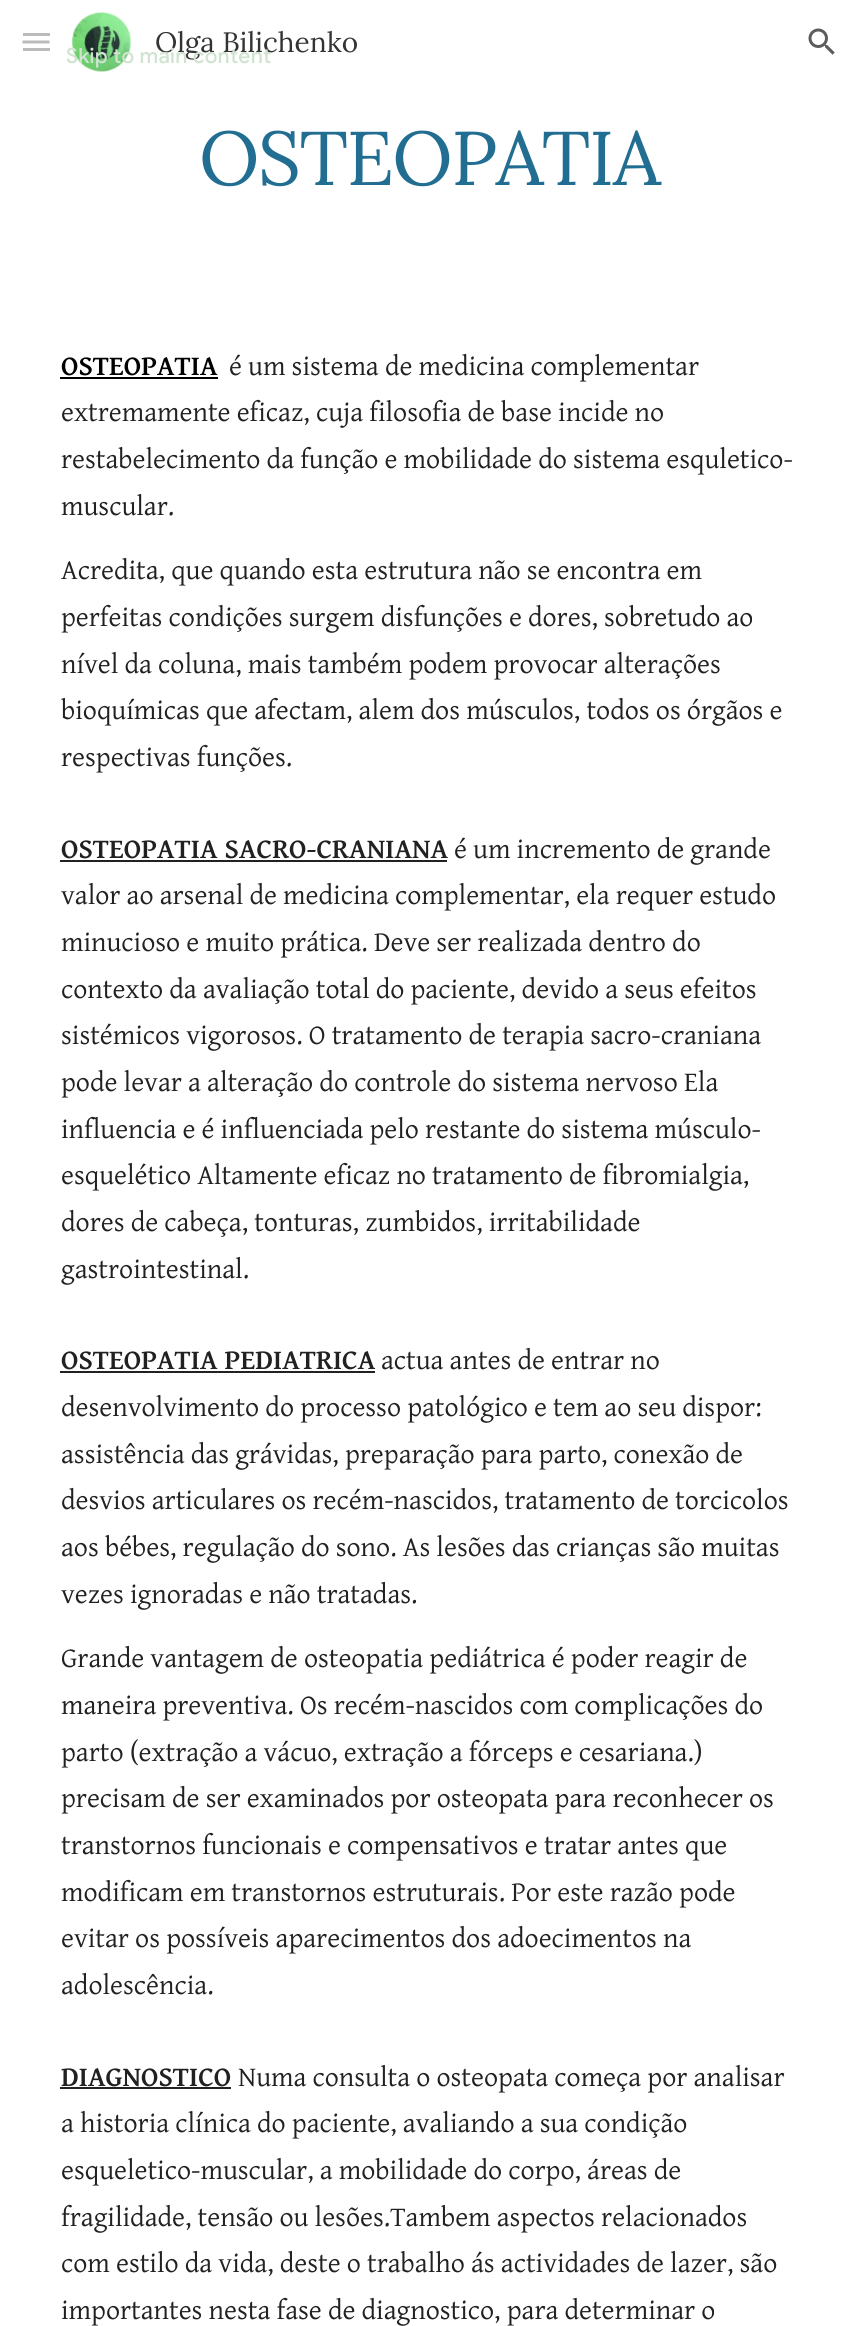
import math
import cairo


def write_spaced(ctx, x, y, s, letter, word):
	ctx.move_to(x, y)
	for ch in s:
		ctx.show_text(ch)
		ctx.rel_move_to(letter + word * (ch == ' '), 0)

def paste(ctx, path, x, y, w, h):
	ctx.save()
	ctx.set_source_surface(cairo.ImageSurface.create_from_png(path), x, y)
	ctx.rectangle(x, y, w, h)
	ctx.fill()
	ctx.restore()

def draw(ctx):
	ctx.set_source_rgb(1, 1, 1)
	ctx.paint()
	ctx.set_source_rgb(0.733, 0.733, 0.733)
	ctx.rectangle(23, 33, 27, 3)
	ctx.fill()
	ctx.new_path()
	ctx.move_to(22.5, 42)
	ctx.line_to(49.5, 42)
	ctx.set_line_width(3)
	ctx.stroke()
	ctx.rectangle(23, 48, 27, 3)
	ctx.fill()
	paste(ctx, 'media/1.png', 72, 11, 59, 62)
	ctx.select_font_face('Lora')
	ctx.set_font_size(28)
	ctx.set_source_rgb(0.2, 0.2, 0.2)
	ctx.move_to(155, 52)
	ctx.show_text('Olga Bilichenko')
	paste(ctx, 'media/2.png', 808, 28, 27, 27)
	ctx.set_font_size(76)
	ctx.set_source_rgb(0.133, 0.431, 0.576)
	write_spaced(ctx, 199, 185, 'OSTEOPATIA', -1.5, 0)
	ctx.select_font_face('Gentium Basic', cairo.FONT_SLANT_NORMAL, cairo.FONT_WEIGHT_BOLD)
	ctx.set_font_size(28)
	ctx.set_source_rgb(0, 0, 0)
	ctx.move_to(61, 375)
	ctx.show_text('OSTEOPATIA')
	ctx.rectangle(60, 377, 158, 2)
	ctx.fill()
	ctx.select_font_face('Gentium Basic')
	ctx.set_source_rgb(0.129, 0.129, 0.129)
	for x, y, s in [
		(229, 375, 'é um sistema de medicina complementar'),
		(61, 421, 'extremamente eficaz, cuja filosofia de base incide no'),
		(61, 468, 'restabelecimento da função e mobilidade do sistema esquletico-'),
		(61, 515, 'muscular.'),
		(61, 579, 'Acredita, que quando esta estrutura não se encontra em'),
		(61, 626, 'perfeitas condições surgem disfunções e dores, sobretudo ao'),
		(61, 673, 'nível da coluna, mais também podem provocar alterações'),
		(61, 719, 'bioquímicas que afectam, alem dos músculos, todos os órgãos e'),
		(61, 766, 'respectivas funções.'),
	]:
		ctx.move_to(x, y)
		ctx.show_text(s)
	ctx.select_font_face('Gentium Basic', cairo.FONT_SLANT_NORMAL, cairo.FONT_WEIGHT_BOLD)
	ctx.move_to(61, 858)
	ctx.show_text('OSTEOPATIA SACRO-CRANIANA')
	ctx.rectangle(60, 860, 387, 2)
	ctx.fill()
	ctx.select_font_face('Gentium Basic')
	for x, y, s in [
		(454, 858, 'é um incremento de grande'),
		(61, 904, 'valor ao arsenal de medicina complementar, ela requer estudo'),
		(61, 951, 'minucioso e muito prática. Deve ser realizada dentro do'),
		(61, 998, 'contexto da avaliação total do paciente, devido a seus efeitos'),
		(61, 1044, 'sistémicos vigorosos. O tratamento de terapia sacro-craniana'),
		(61, 1091, 'pode levar a alteração do controle do sistema nervoso Ela'),
		(61, 1138, 'influencia e é influenciada pelo restante do sistema músculo-'),
		(61, 1184, 'esquelético Altamente eficaz no tratamento de fibromialgia,'),
		(61, 1231, 'dores de cabeça, tonturas, zumbidos, irritabilidade'),
		(61, 1278, 'gastrointestinal.'),
	]:
		ctx.move_to(x, y)
		ctx.show_text(s)
	ctx.select_font_face('Gentium Basic', cairo.FONT_SLANT_NORMAL, cairo.FONT_WEIGHT_BOLD)
	ctx.move_to(61, 1369)
	ctx.show_text('OSTEOPATIA PEDIATRICA')
	ctx.rectangle(60, 1371, 315, 2)
	ctx.fill()
	ctx.select_font_face('Gentium Basic')
	for x, y, s in [
		(381, 1369, 'actua antes de entrar no'),
		(61, 1416, 'desenvolvimento do processo patológico e tem ao seu dispor:'),
		(61, 1463, 'assistência das grávidas, preparação para parto, conexão de'),
		(61, 1509, 'desvios articulares os recém-nascidos, tratamento de torcicolos'),
		(61, 1556, 'aos bébes, regulação do sono. As lesões das crianças são muitas'),
		(61, 1603, 'vezes ignoradas e não tratadas.'),
		(61, 1667, 'Grande vantagem de osteopatia pediátrica é poder reagir de'),
		(61, 1714, 'maneira preventiva. Os recém-nascidos com complicações do'),
		(61, 1761, 'parto (extração a vácuo, extração a fórceps e cesariana.)'),
		(61, 1807, 'precisam de ser examinados por osteopata para reconhecer os'),
		(61, 1854, 'transtornos funcionais e compensativos e tratar antes que'),
		(61, 1901, 'modificam em transtornos estruturais. Por este razão pode'),
		(61, 1947, 'evitar os possíveis aparecimentos dos adoecimentos na'),
		(61, 1994, 'adolescência.'),
	]:
		ctx.move_to(x, y)
		ctx.show_text(s)
	ctx.select_font_face('Gentium Basic', cairo.FONT_SLANT_NORMAL, cairo.FONT_WEIGHT_BOLD)
	ctx.move_to(61, 2086)
	ctx.show_text('DIAGNOSTICO')
	ctx.rectangle(60, 2087, 171, 2)
	ctx.fill()
	ctx.select_font_face('Gentium Basic')
	for x, y, s in [
		(238, 2086, 'Numa consulta o osteopata começa por analisar'),
		(61, 2132, 'a historia clínica do paciente, avaliando a sua condição'),
		(61, 2179, 'esqueletico-muscular, a mobilidade do corpo, áreas de'),
		(61, 2226, 'fragilidade, tensão ou lesões.Tambem aspectos relacionados'),
		(61, 2272, 'com estilo da vida, deste o trabalho ás actividades de lazer, são'),
		(61, 2319, 'importantes nesta fase de diagnostico, para determinar o'),
	]:
		ctx.move_to(x, y)
		ctx.show_text(s)
	ctx.select_font_face('Google Sans Medium')
	ctx.set_font_size(21)
	ctx.set_source_rgb(0.812, 0.89, 0.816)
	write_spaced(ctx, 66, 63, 'Skip to main content', 0.25, 0)


surface = cairo.ImageSurface(cairo.FORMAT_RGB24, 858, 2326)
ctx = cairo.Context(surface)
options = cairo.FontOptions()
options.set_hint_metrics(cairo.HINT_METRICS_OFF)
options.set_hint_style(cairo.HINT_STYLE_NONE)
ctx.set_font_options(options)
ctx.set_miter_limit(4)
draw(ctx)
surface.write_to_png('image.png')
